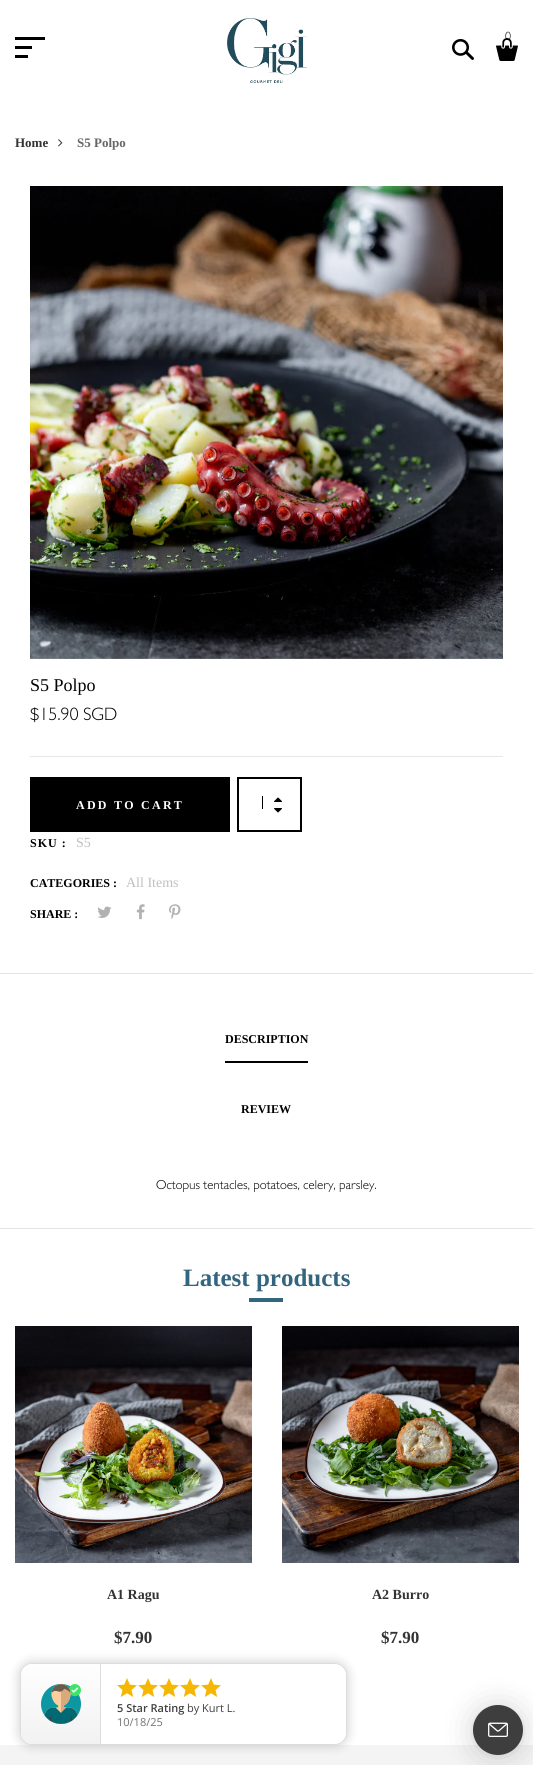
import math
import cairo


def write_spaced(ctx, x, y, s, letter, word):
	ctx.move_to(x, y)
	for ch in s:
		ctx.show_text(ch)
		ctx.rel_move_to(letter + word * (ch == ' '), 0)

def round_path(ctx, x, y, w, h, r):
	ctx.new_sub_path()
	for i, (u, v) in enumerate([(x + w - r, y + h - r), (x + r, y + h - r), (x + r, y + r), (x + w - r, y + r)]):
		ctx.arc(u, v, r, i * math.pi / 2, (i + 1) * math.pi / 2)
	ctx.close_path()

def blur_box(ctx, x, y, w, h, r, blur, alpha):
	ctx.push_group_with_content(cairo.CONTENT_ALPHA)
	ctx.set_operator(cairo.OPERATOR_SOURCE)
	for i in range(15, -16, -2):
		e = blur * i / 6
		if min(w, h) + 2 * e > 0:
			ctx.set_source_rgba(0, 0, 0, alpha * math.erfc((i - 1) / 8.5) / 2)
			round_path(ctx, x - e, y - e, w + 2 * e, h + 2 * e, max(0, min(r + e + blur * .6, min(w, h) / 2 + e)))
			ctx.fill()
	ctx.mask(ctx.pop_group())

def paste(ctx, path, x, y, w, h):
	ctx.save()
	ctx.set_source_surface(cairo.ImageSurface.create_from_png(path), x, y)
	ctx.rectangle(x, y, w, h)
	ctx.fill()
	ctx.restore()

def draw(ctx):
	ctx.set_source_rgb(1, 1, 1)
	ctx.paint()
	ctx.set_source_rgb(0, 0, 0)
	ctx.rectangle(15, 37, 30, 3)
	ctx.rectangle(15, 46, 17, 3)
	ctx.rectangle(15, 55, 13, 3)
	ctx.fill()
	paste(ctx, 'media/1.png', 227, 18, 80, 66)
	paste(ctx, 'media/2.png', 452, 39, 22, 21)
	paste(ctx, 'media/4.png', 496, 38, 22, 23)
	paste(ctx, 'media/3.png', 505, 31, 6, 10)
	ctx.select_font_face('Liberation Serif', cairo.FONT_SLANT_NORMAL, cairo.FONT_WEIGHT_BOLD)
	ctx.set_font_size(13)
	ctx.set_source_rgb(0.2, 0.2, 0.2)
	ctx.move_to(15, 147)
	ctx.show_text('Home')
	paste(ctx, 'media/5.png', 58, 139, 5, 8)
	ctx.set_source_rgb(0.4, 0.4, 0.4)
	ctx.move_to(77, 147)
	ctx.show_text('S5 Polpo')
	paste(ctx, 'media/6.png', 30, 186, 473, 473)
	ctx.select_font_face('Liberation Serif')
	ctx.set_font_size(18)
	ctx.set_source_rgb(0.004, 0.004, 0.004)
	ctx.move_to(30, 691)
	ctx.show_text('S5 Polpo')
	ctx.set_source_rgb(0.906, 0.906, 0.906)
	ctx.rectangle(30, 756, 473, 1)
	ctx.fill()
	paste(ctx, 'media/7.png', 30, 707, 87, 16)
	ctx.set_source_rgb(0, 0, 0)
	ctx.rectangle(30, 777, 200, 55)
	ctx.fill()
	ctx.select_font_face('Liberation Serif', cairo.FONT_SLANT_NORMAL, cairo.FONT_WEIGHT_BOLD)
	ctx.set_font_size(12)
	ctx.set_source_rgb(1, 1, 1)
	write_spaced(ctx, 76, 809, 'ADD TO CART', 2.25, 0)
	ctx.rectangle(238, 778, 63, 53)
	ctx.set_source_rgb(0, 0, 0)
	ctx.stroke()
	ctx.rectangle(262, 796, 1, 13)
	ctx.fill()
	paste(ctx, 'media/8.png', 274, 797, 8, 5)
	paste(ctx, 'media/9.png', 274, 808, 8, 5)
	ctx.set_source_rgb(0.004, 0.004, 0.004)
	write_spaced(ctx, 30, 847, 'SKU :', 1, 0)
	ctx.select_font_face('Liberation Serif')
	ctx.set_font_size(14)
	ctx.set_source_rgb(0.749, 0.749, 0.749)
	ctx.move_to(76, 847)
	ctx.show_text('S5')
	ctx.select_font_face('Liberation Serif', cairo.FONT_SLANT_NORMAL, cairo.FONT_WEIGHT_BOLD)
	ctx.set_font_size(12)
	ctx.set_source_rgb(0.004, 0.004, 0.004)
	ctx.move_to(30, 887)
	ctx.show_text('CATEGORIES :')
	ctx.select_font_face('Liberation Serif')
	ctx.set_font_size(14)
	ctx.set_source_rgb(0.749, 0.749, 0.749)
	ctx.move_to(126, 887)
	ctx.show_text('All Items')
	ctx.select_font_face('Liberation Serif', cairo.FONT_SLANT_NORMAL, cairo.FONT_WEIGHT_BOLD)
	ctx.set_font_size(12)
	ctx.set_source_rgb(0.004, 0.004, 0.004)
	ctx.move_to(30, 918)
	ctx.show_text('SHARE :')
	paste(ctx, 'media/10.png', 97, 906, 15, 12)
	paste(ctx, 'media/11.png', 136, 904, 9, 16)
	paste(ctx, 'media/12.png', 169, 904, 12, 15)
	ctx.set_source_rgb(0.894, 0.894, 0.894)
	ctx.rectangle(0, 1228, 533, 1)
	ctx.fill()
	ctx.rectangle(0, 973, 533, 1)
	ctx.fill()
	ctx.set_source_rgb(0.004, 0.004, 0.004)
	ctx.move_to(225, 1043)
	ctx.show_text('DESCRIPTION')
	ctx.set_source_rgb(0, 0, 0)
	ctx.rectangle(225, 1061, 83, 2)
	ctx.fill()
	ctx.set_source_rgb(0.004, 0.004, 0.004)
	ctx.move_to(241, 1113)
	ctx.show_text('REVIEW')
	paste(ctx, 'media/13.png', 156, 1180, 220, 12)
	ctx.set_font_size(25)
	ctx.set_source_rgb(0.204, 0.396, 0.498)
	ctx.move_to(183, 1286)
	ctx.show_text('Latest products')
	ctx.rectangle(249, 1298, 34, 4)
	ctx.fill()
	paste(ctx, 'media/14.png', 15, 1326, 237, 237)
	ctx.set_font_size(14)
	ctx.set_source_rgb(0.2, 0.2, 0.2)
	ctx.move_to(107, 1599)
	ctx.show_text('A1 Ragu')
	ctx.set_font_size(17)
	ctx.move_to(114, 1643)
	ctx.show_text('$7.90')
	paste(ctx, 'media/15.png', 282, 1326, 237, 237)
	ctx.set_font_size(14)
	ctx.move_to(372, 1599)
	ctx.show_text('A2 Burro')
	ctx.set_font_size(17)
	ctx.move_to(381, 1643)
	ctx.show_text('$7.90')
	ctx.set_source_rgb(0.957, 0.957, 0.957)
	ctx.rectangle(0, 1745, 533, 20)
	ctx.fill()
	ctx.set_source_rgb(0, 0, 0)
	blur_box(ctx, 18, 1661, 331, 86, 14, 5, 0.15)
	ctx.set_source_rgb(1, 1, 1)
	round_path(ctx, 20.5, 1663.5, 326, 81, 11.5)
	ctx.fill_preserve()
	ctx.set_source_rgb(0.867, 0.867, 0.867)
	ctx.set_line_width(1)
	ctx.stroke()
	gradient = cairo.LinearGradient(60, 1664, 61, 1744)
	gradient.add_color_stop_rgba(0, 0.996, 0.996, 0.996, 1)
	gradient.add_color_stop_rgba(1, 0.949, 0.949, 0.949, 1)
	ctx.set_source(gradient)
	ctx.new_path()
	ctx.move_to(32, 1664)
	ctx.line_to(101, 1664)
	ctx.line_to(101, 1744)
	ctx.line_to(32, 1744)
	ctx.curve_to(26, 1744, 21, 1739, 21, 1733)
	ctx.line_to(21, 1675)
	ctx.curve_to(21, 1669, 26, 1664, 32, 1664)
	ctx.close_path()
	ctx.fill()
	ctx.set_source_rgb(0.867, 0.867, 0.867)
	ctx.rectangle(100, 1664, 1, 80)
	ctx.fill()
	paste(ctx, 'media/16.png', 41, 1684, 40, 40)
	paste(ctx, 'media/17.png', 117, 1678, 20, 19)
	paste(ctx, 'media/17.png', 138, 1678, 20, 19)
	paste(ctx, 'media/17.png', 159, 1678, 20, 19)
	paste(ctx, 'media/17.png', 180, 1678, 20, 19)
	paste(ctx, 'media/17.png', 201, 1678, 20, 19)
	ctx.select_font_face('Open Sans SemiBold')
	ctx.set_font_size(11)
	ctx.set_source_rgb(0.251, 0.251, 0.251)
	ctx.move_to(117, 1712)
	ctx.show_text('5 Star Rating')
	ctx.select_font_face('Open Sans')
	ctx.move_to(187, 1712)
	ctx.show_text('by Kurt L.')
	ctx.set_source_rgb(0.451, 0.451, 0.451)
	ctx.move_to(117, 1726)
	ctx.show_text('10/18/25')
	ctx.set_source_rgb(0, 0, 0)
	blur_box(ctx, 473, 1707, 50, 50, 25, 16, 0.16)
	blur_box(ctx, 473, 1706, 50, 50, 25, 3, 0.06)
	ctx.set_source_rgb(0.243, 0.243, 0.243)
	ctx.arc(498, 1730, 25, 0, 2 * math.pi)
	ctx.fill()
	paste(ctx, 'media/18.png', 488, 1722, 20, 15)


surface = cairo.ImageSurface(cairo.FORMAT_RGB24, 533, 1765)
ctx = cairo.Context(surface)
options = cairo.FontOptions()
options.set_hint_metrics(cairo.HINT_METRICS_OFF)
options.set_hint_style(cairo.HINT_STYLE_NONE)
ctx.set_font_options(options)
ctx.set_miter_limit(4)
draw(ctx)
surface.write_to_png('image.png')
